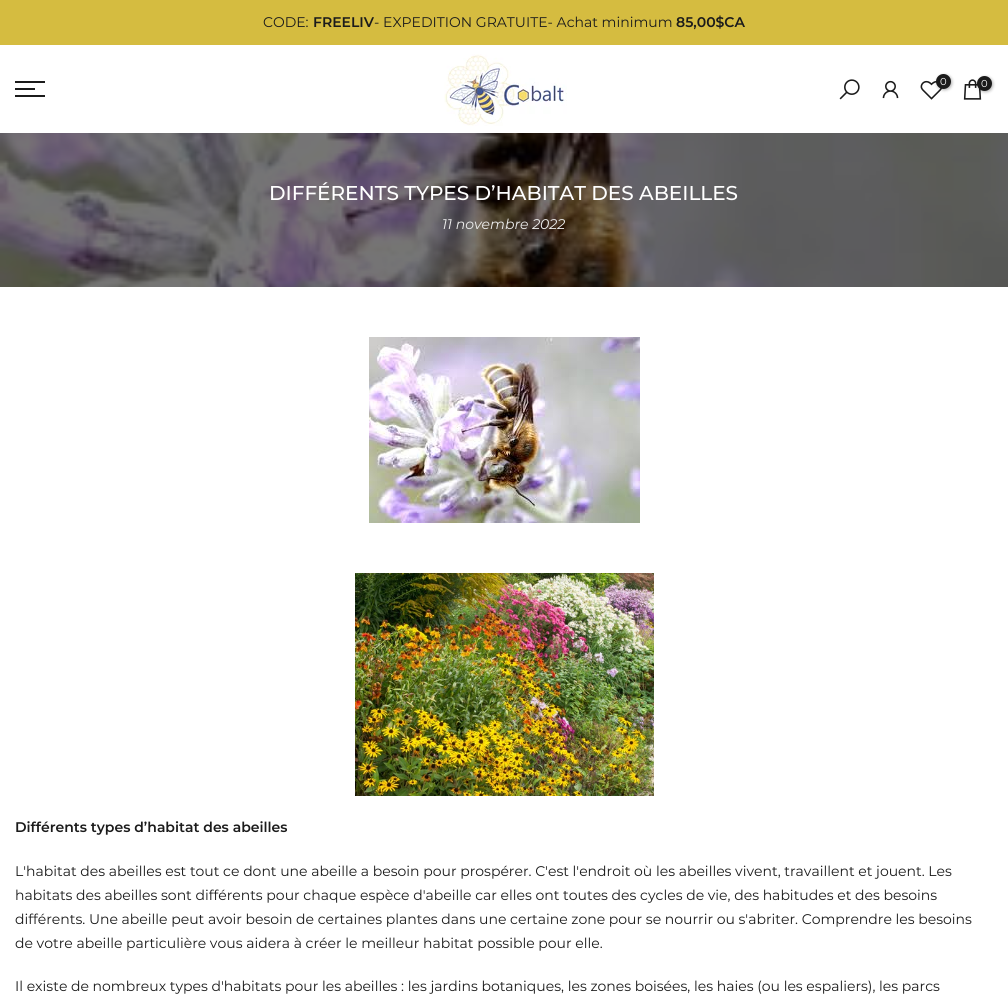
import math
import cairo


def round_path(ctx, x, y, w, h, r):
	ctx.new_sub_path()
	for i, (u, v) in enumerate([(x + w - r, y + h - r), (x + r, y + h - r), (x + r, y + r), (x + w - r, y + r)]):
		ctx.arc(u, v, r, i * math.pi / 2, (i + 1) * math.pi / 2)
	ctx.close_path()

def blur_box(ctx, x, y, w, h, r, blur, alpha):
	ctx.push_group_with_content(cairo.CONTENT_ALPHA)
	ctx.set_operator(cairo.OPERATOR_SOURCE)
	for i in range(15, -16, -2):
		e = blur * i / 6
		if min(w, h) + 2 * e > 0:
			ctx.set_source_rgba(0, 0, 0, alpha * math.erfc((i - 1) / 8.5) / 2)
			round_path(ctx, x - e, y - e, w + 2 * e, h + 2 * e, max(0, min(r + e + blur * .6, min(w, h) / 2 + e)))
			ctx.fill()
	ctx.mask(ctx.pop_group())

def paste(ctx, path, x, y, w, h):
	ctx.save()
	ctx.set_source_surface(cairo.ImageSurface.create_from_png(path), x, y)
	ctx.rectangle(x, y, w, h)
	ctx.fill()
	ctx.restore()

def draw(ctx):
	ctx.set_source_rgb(1, 1, 1)
	ctx.paint()
	ctx.set_source_rgb(0.835, 0.737, 0.251)
	ctx.rectangle(0, 0, 1008, 45)
	ctx.fill()
	ctx.select_font_face('Montserrat')
	ctx.set_font_size(14)
	ctx.set_source_rgb(0.106, 0.106, 0.106)
	ctx.move_to(263, 27)
	ctx.show_text('CODE:')
	ctx.select_font_face('Montserrat SemiBold')
	ctx.move_to(313, 27)
	ctx.show_text('FREELIV')
	ctx.select_font_face('Montserrat')
	ctx.move_to(374, 27)
	ctx.show_text('- EXPEDITION GRATUITE- Achat minimum')
	ctx.select_font_face('Montserrat SemiBold')
	ctx.move_to(676, 27)
	ctx.show_text('85,00$CA')
	ctx.rectangle(15, 81, 30, 2)
	ctx.rectangle(15, 88, 20, 2)
	ctx.rectangle(15, 95, 30, 2)
	ctx.fill()
	paste(ctx, 'media/1.png', 444, 54, 123, 72)
	paste(ctx, 'media/2.png', 839, 79, 21, 21)
	paste(ctx, 'media/3.png', 882, 80, 17, 19)
	paste(ctx, 'media/4.png', 920, 80, 23, 20)
	ctx.set_source_rgb(0, 0, 0)
	blur_box(ctx, 937, 75, 15, 15, 7.5, 1.5, 0.3)
	ctx.set_source_rgb(0.106, 0.106, 0.106)
	ctx.arc(943.5, 81.5, 7.5, 0, 2 * math.pi)
	ctx.fill()
	ctx.select_font_face('Montserrat')
	ctx.set_font_size(10)
	ctx.set_source_rgb(1, 1, 1)
	ctx.move_to(940, 85)
	ctx.show_text('0')
	paste(ctx, 'media/5.png', 963, 79, 19, 21)
	ctx.set_source_rgb(0, 0, 0)
	blur_box(ctx, 978, 77, 15, 15, 7.5, 1.5, 0.3)
	ctx.set_source_rgb(0.106, 0.106, 0.106)
	ctx.arc(984.5, 83.5, 7.5, 0, 2 * math.pi)
	ctx.fill()
	ctx.set_source_rgb(1, 1, 1)
	ctx.move_to(981, 87)
	ctx.show_text('0')
	paste(ctx, 'media/6.png', 0, 133, 1008, 154)
	ctx.select_font_face('Montserrat Medium')
	ctx.set_font_size(20)
	ctx.move_to(269, 200)
	ctx.show_text('DIFFÉRENTS TYPES D’HABITAT DES ABEILLES')
	ctx.select_font_face('Montserrat', cairo.FONT_SLANT_ITALIC)
	ctx.set_font_size(14)
	ctx.set_source_rgb(0.929, 0.929, 0.929)
	ctx.move_to(442, 229)
	ctx.show_text('11 novembre 2022')
	paste(ctx, 'media/7.png', 369, 337, 271, 186)
	paste(ctx, 'media/8.png', 355, 573, 299, 223)
	ctx.select_font_face('Montserrat SemiBold')
	ctx.set_source_rgb(0.106, 0.106, 0.106)
	ctx.move_to(15, 832)
	ctx.show_text('Différents types d’habitat des abeilles')
	ctx.select_font_face('Montserrat')
	for x, y, s in [
		(15, 876, 'L\'habitat des abeilles est tout ce dont une abeille a besoin pour prospérer. C\'est l\'endroit où les abeilles vivent, travaillent et jouent. Les'),
		(15, 900, 'habitats des abeilles sont différents pour chaque espèce d\'abeille car elles ont toutes des cycles de vie, des habitudes et des besoins'),
		(15, 924, 'différents. Une abeille peut avoir besoin de certaines plantes dans une certaine zone pour se nourrir ou s\'abriter. Comprendre les besoins'),
		(15, 948, 'de votre abeille particulière vous aidera à créer le meilleur habitat possible pour elle.'),
		(15, 991, 'Il existe de nombreux types d\'habitats pour les abeilles : les jardins botaniques, les zones boisées, les haies (ou les espaliers), les parcs'),
	]:
		ctx.move_to(x, y)
		ctx.show_text(s)


surface = cairo.ImageSurface(cairo.FORMAT_RGB24, 1008, 1006)
ctx = cairo.Context(surface)
options = cairo.FontOptions()
options.set_hint_metrics(cairo.HINT_METRICS_OFF)
options.set_hint_style(cairo.HINT_STYLE_NONE)
ctx.set_font_options(options)
ctx.set_miter_limit(4)
draw(ctx)
surface.write_to_png('image.png')
